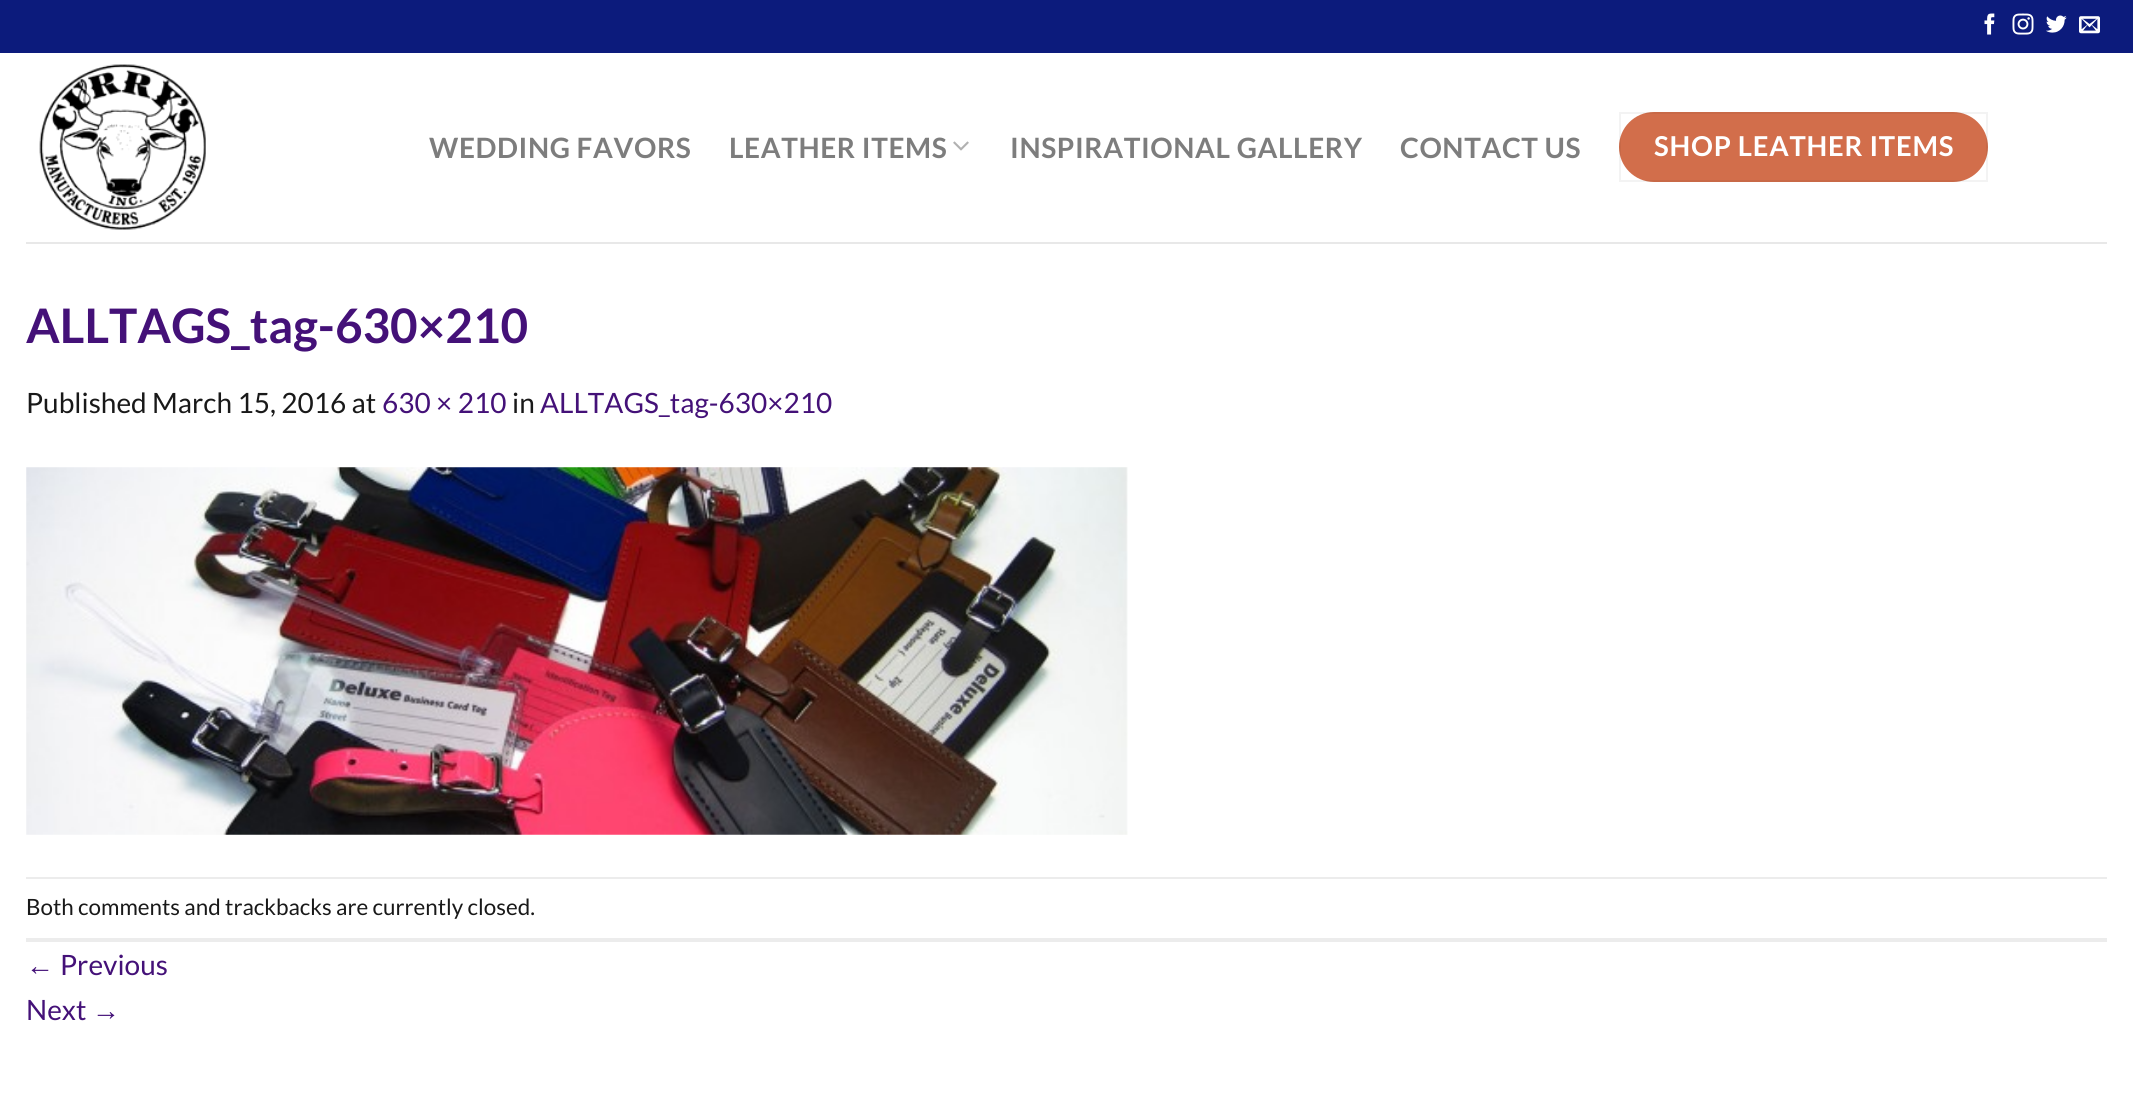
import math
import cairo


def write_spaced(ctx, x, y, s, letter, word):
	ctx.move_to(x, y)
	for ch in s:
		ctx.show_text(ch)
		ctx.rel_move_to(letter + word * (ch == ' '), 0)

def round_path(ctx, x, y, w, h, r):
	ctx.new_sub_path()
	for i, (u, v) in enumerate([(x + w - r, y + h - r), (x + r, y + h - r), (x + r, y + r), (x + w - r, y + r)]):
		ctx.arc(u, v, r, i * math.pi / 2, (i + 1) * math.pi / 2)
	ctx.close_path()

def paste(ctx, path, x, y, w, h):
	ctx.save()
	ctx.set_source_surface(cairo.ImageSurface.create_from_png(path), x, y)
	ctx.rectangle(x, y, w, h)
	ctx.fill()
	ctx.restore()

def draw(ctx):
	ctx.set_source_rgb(1, 1, 1)
	ctx.paint()
	ctx.set_source_rgb(0.047, 0.106, 0.486)
	ctx.rectangle(0, 0, 2133, 53)
	ctx.fill()
	paste(ctx, 'media/1.png', 1984, 13, 11, 22)
	paste(ctx, 'media/2.png', 2012, 13, 22, 22)
	paste(ctx, 'media/3.png', 2046, 15, 21, 18)
	paste(ctx, 'media/4.png', 2079, 16, 21, 18)
	paste(ctx, 'media/5.png', 39, 64, 167, 166)
	ctx.select_font_face('Lato', cairo.FONT_SLANT_NORMAL, cairo.FONT_WEIGHT_BOLD)
	ctx.set_font_size(28)
	ctx.set_source_rgb(0.49, 0.49, 0.49)
	write_spaced(ctx, 429, 158, 'WEDDING FAVORS', 0.6, 0)
	write_spaced(ctx, 729, 158, 'LEATHER ITEMS', 0.6, 0)
	paste(ctx, 'media/6.png', 953, 141, 16, 10)
	write_spaced(ctx, 1010, 158, 'INSPIRATIONAL GALLERY', 0.6, 0)
	write_spaced(ctx, 1400, 158, 'CONTACT US', 0.6, 0)
	ctx.set_source_rgb(0.824, 0.431, 0.294)
	round_path(ctx, 1619, 112, 369, 70, 35)
	ctx.fill()
	ctx.rectangle(1620, 113, 367, 68)
	ctx.set_source_rgba(0, 0, 0, 0.05)
	ctx.stroke()
	ctx.set_font_size(27.4)
	ctx.set_source_rgb(1, 1, 1)
	write_spaced(ctx, 1654, 156, 'SHOP LEATHER ITEMS', 0.8, 0)
	ctx.set_source_rgb(0.91, 0.91, 0.91)
	ctx.rectangle(26, 242, 2081, 2)
	ctx.fill()
	ctx.set_font_size(47.6)
	ctx.set_source_rgb(0.267, 0.067, 0.471)
	ctx.move_to(26, 343)
	ctx.show_text('ALLTAGS_tag-630×210')
	ctx.select_font_face('Lato')
	ctx.set_font_size(28)
	ctx.set_source_rgb(0.098, 0.098, 0.098)
	ctx.move_to(26, 413)
	ctx.show_text('Published March 15, 2016 at')
	ctx.set_source_rgb(0.267, 0.067, 0.471)
	ctx.move_to(382, 413)
	ctx.show_text('630 × 210')
	ctx.set_source_rgb(0.098, 0.098, 0.098)
	ctx.move_to(512, 413)
	ctx.show_text('in')
	ctx.set_source_rgb(0.267, 0.067, 0.471)
	ctx.move_to(540, 413)
	ctx.show_text('ALLTAGS_tag-630×210')
	paste(ctx, 'media/7.png', 26, 467, 1102, 368)
	ctx.set_source_rgb(0.925, 0.925, 0.925)
	ctx.rectangle(26, 877, 2081, 2)
	ctx.fill()
	ctx.rectangle(26, 938, 2081, 4)
	ctx.fill()
	ctx.set_font_size(22.4)
	ctx.set_source_rgb(0.098, 0.098, 0.098)
	ctx.move_to(26, 915)
	ctx.show_text('Both comments and trackbacks are currently closed.')
	ctx.select_font_face('Liberation Sans')
	ctx.set_font_size(28)
	ctx.set_source_rgb(0.267, 0.067, 0.471)
	ctx.move_to(26, 975)
	ctx.show_text('←')
	ctx.select_font_face('Lato')
	ctx.move_to(60, 975)
	ctx.show_text('Previous')
	ctx.move_to(26, 1020)
	ctx.show_text('Next')
	ctx.select_font_face('Liberation Sans')
	ctx.move_to(92, 1020)
	ctx.show_text('→')


surface = cairo.ImageSurface(cairo.FORMAT_RGB24, 2133, 1096)
ctx = cairo.Context(surface)
options = cairo.FontOptions()
options.set_hint_metrics(cairo.HINT_METRICS_OFF)
options.set_hint_style(cairo.HINT_STYLE_NONE)
ctx.set_font_options(options)
ctx.set_miter_limit(4)
draw(ctx)
surface.write_to_png('image.png')
